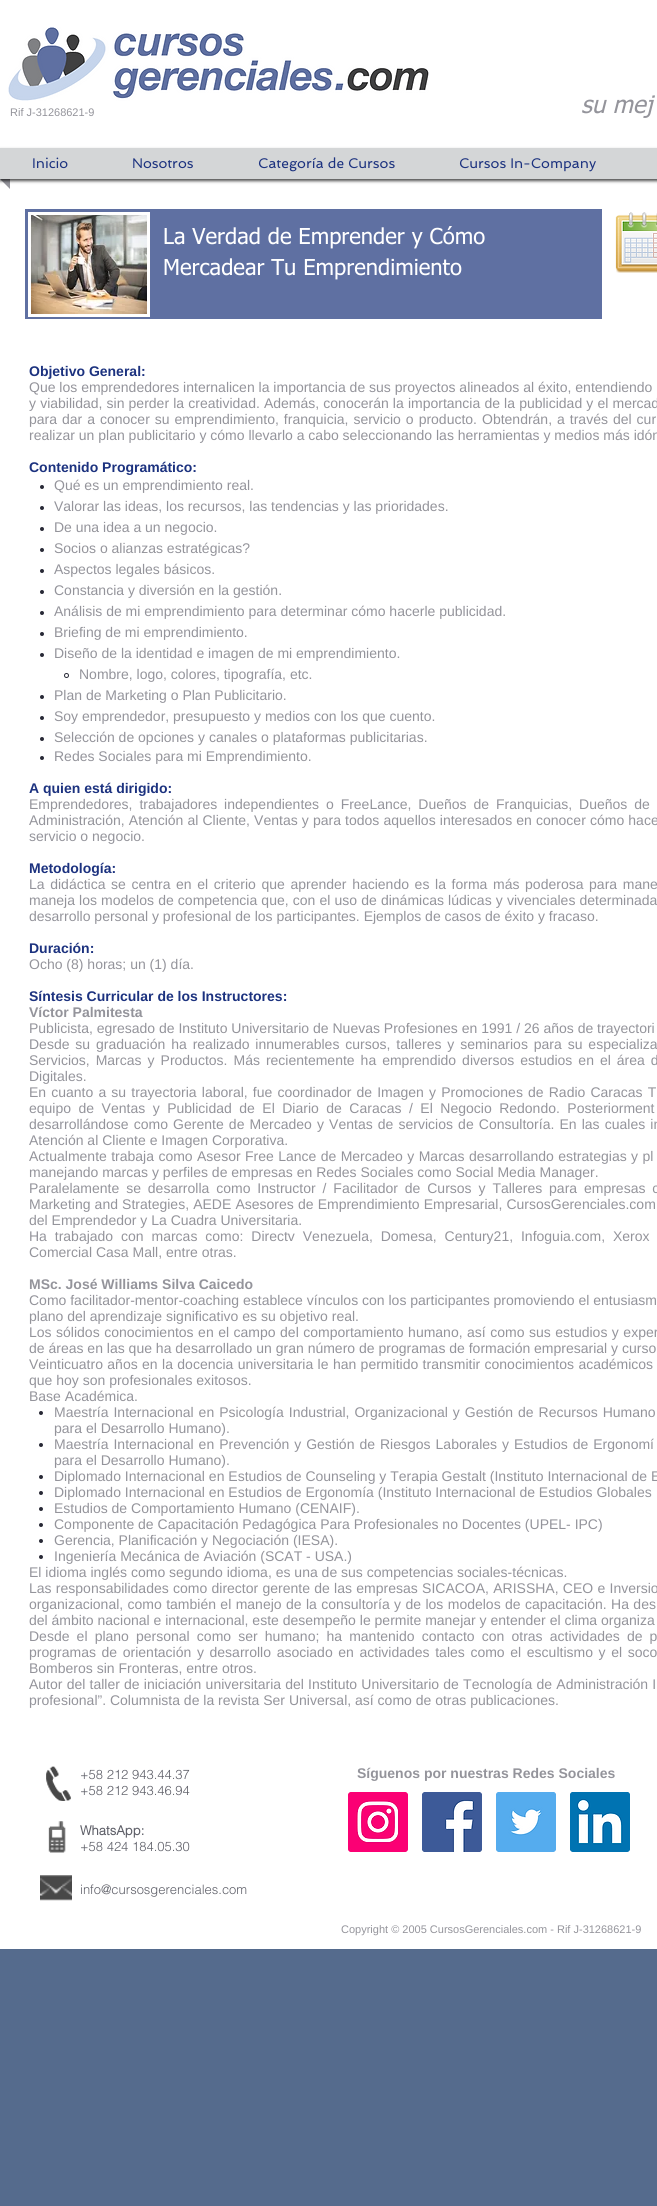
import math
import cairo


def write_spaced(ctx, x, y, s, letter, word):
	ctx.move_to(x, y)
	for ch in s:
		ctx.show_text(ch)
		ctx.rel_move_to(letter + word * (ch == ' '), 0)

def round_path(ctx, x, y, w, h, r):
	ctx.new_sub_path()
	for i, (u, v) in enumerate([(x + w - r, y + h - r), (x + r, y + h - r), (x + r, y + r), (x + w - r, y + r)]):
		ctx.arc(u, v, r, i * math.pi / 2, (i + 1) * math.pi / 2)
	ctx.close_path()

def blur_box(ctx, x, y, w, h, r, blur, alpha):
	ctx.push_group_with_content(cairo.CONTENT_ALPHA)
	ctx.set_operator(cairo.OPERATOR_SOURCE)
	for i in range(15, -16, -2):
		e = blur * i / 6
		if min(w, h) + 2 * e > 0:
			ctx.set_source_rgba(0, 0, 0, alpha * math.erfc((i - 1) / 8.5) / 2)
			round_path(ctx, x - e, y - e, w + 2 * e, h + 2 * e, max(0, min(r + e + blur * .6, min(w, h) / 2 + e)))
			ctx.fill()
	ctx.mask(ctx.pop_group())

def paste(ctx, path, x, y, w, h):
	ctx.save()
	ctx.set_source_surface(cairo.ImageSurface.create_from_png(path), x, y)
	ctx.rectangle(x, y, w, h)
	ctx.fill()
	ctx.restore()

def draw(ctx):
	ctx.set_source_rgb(0.333, 0.42, 0.553)
	ctx.paint()
	ctx.set_source_rgb(1, 1, 1)
	ctx.rectangle(0, 0, 657, 1949)
	ctx.fill()
	paste(ctx, 'media/1.png', 8, 27, 421, 74)
	ctx.select_font_face('Liberation Sans')
	ctx.set_font_size(11)
	ctx.set_source_rgb(0.58, 0.58, 0.608)
	ctx.move_to(10, 116)
	ctx.show_text('Rif J-31268621-9')
	ctx.select_font_face('tahoma', cairo.FONT_SLANT_ITALIC)
	ctx.set_font_size(24)
	ctx.move_to(581, 113)
	ctx.show_text('su mej')
	ctx.new_path()
	ctx.move_to(0, 179)
	ctx.line_to(10, 179)
	ctx.line_to(10, 189)
	ctx.close_path()
	ctx.fill()
	ctx.set_source_rgb(0, 0, 0)
	blur_box(ctx, 0, 150, 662, 31, 0, 1.5, 0.7)
	ctx.set_source_rgb(0.831, 0.839, 0.843)
	ctx.rectangle(0, 148, 657, 31)
	ctx.fill()
	ctx.select_font_face('Spinnaker')
	ctx.set_font_size(14)
	ctx.set_source_rgb(0.11, 0.196, 0.498)
	for x, y, s in [
		(32, 168, 'Inicio'),
		(132, 168, 'Nosotros'),
		(258, 168, 'Categoría de Cursos'),
		(459, 168, 'Cursos In-Company'),
	]:
		ctx.move_to(x, y)
		ctx.show_text(s)
	ctx.set_source_rgb(0.373, 0.439, 0.635)
	ctx.rectangle(25, 209, 577, 110)
	ctx.fill()
	ctx.set_source_rgb(1, 1, 1)
	ctx.rectangle(28, 212, 122, 105)
	ctx.fill()
	paste(ctx, 'media/2.png', 31, 215, 116, 99)
	ctx.select_font_face('tahoma')
	ctx.set_font_size(22)
	ctx.move_to(163, 244)
	ctx.show_text('La Verdad de Emprender y Cómo')
	ctx.move_to(163, 275)
	ctx.show_text('Mercadear Tu Emprendimiento')
	paste(ctx, 'media/3.png', 615, 212, 42, 61)
	ctx.select_font_face('Liberation Sans', cairo.FONT_SLANT_NORMAL, cairo.FONT_WEIGHT_BOLD)
	ctx.set_font_size(14)
	ctx.set_source_rgb(0.11, 0.196, 0.498)
	ctx.move_to(29, 376)
	ctx.show_text('Objetivo General:')
	ctx.select_font_face('Liberation Sans')
	ctx.set_source_rgb(0.58, 0.58, 0.608)
	ctx.move_to(29, 392)
	ctx.show_text('Que los emprendedores internalicen la importancia de sus proyectos alineados al éxito, entendiendo')
	write_spaced(ctx, 29, 408, 'y viabilidad, sin perder la creatividad. Además, conocerán la importancia de la publicidad y el mercad', 0, 0.25)
	write_spaced(ctx, 29, 424, 'para dar a conocer su emprendimiento, franquicia, servicio o producto. Obtendrán, a través del cur', 0, 1.1)
	ctx.move_to(29, 440)
	ctx.show_text('realizar un plan publicitario y cómo llevarlo a cabo seleccionando las herramientas y medios más idón')
	ctx.select_font_face('Liberation Sans', cairo.FONT_SLANT_NORMAL, cairo.FONT_WEIGHT_BOLD)
	ctx.set_source_rgb(0.11, 0.196, 0.498)
	ctx.move_to(29, 472)
	ctx.show_text('Contenido Programático:')
	ctx.set_source_rgb(0.157, 0.161, 0.212)
	ctx.new_path()
	ctx.arc(42, 487, 2, 0, 2 * math.pi)
	ctx.fill()
	ctx.select_font_face('Liberation Sans')
	ctx.set_source_rgb(0.58, 0.58, 0.608)
	ctx.move_to(54, 490)
	ctx.show_text('Qué es un emprendimiento real.')
	ctx.set_source_rgb(0.157, 0.161, 0.212)
	ctx.new_path()
	ctx.arc(42, 508, 2, 0, 2 * math.pi)
	ctx.fill()
	ctx.set_source_rgb(0.58, 0.58, 0.608)
	ctx.move_to(54, 511)
	ctx.show_text('Valorar las ideas, los recursos, las tendencias y las prioridades.')
	ctx.set_source_rgb(0.157, 0.161, 0.212)
	ctx.new_path()
	ctx.arc(42, 529, 2, 0, 2 * math.pi)
	ctx.fill()
	ctx.set_source_rgb(0.58, 0.58, 0.608)
	ctx.move_to(54, 532)
	ctx.show_text('De una idea a un negocio.')
	ctx.set_source_rgb(0.157, 0.161, 0.212)
	ctx.new_path()
	ctx.arc(42, 550, 2, 0, 2 * math.pi)
	ctx.fill()
	ctx.set_source_rgb(0.58, 0.58, 0.608)
	ctx.move_to(54, 553)
	ctx.show_text('Socios o alianzas estratégicas?')
	ctx.set_source_rgb(0.157, 0.161, 0.212)
	ctx.new_path()
	ctx.arc(42, 571, 2, 0, 2 * math.pi)
	ctx.fill()
	ctx.set_source_rgb(0.58, 0.58, 0.608)
	ctx.move_to(54, 574)
	ctx.show_text('Aspectos legales básicos.')
	ctx.set_source_rgb(0.157, 0.161, 0.212)
	ctx.new_path()
	ctx.arc(42, 592, 2, 0, 2 * math.pi)
	ctx.fill()
	ctx.set_source_rgb(0.58, 0.58, 0.608)
	ctx.move_to(54, 595)
	ctx.show_text('Constancia y diversión en la gestión.')
	ctx.set_source_rgb(0.157, 0.161, 0.212)
	ctx.new_path()
	ctx.arc(42, 613, 2, 0, 2 * math.pi)
	ctx.fill()
	ctx.set_source_rgb(0.58, 0.58, 0.608)
	ctx.move_to(54, 616)
	ctx.show_text('Análisis de mi emprendimiento para determinar cómo hacerle publicidad.')
	ctx.set_source_rgb(0.157, 0.161, 0.212)
	ctx.new_path()
	ctx.arc(42, 634, 2, 0, 2 * math.pi)
	ctx.fill()
	ctx.set_source_rgb(0.58, 0.58, 0.608)
	ctx.move_to(54, 637)
	ctx.show_text('Briefing de mi emprendimiento.')
	ctx.set_source_rgb(0.157, 0.161, 0.212)
	ctx.new_path()
	ctx.arc(42, 655, 2, 0, 2 * math.pi)
	ctx.fill()
	ctx.set_source_rgb(0.58, 0.58, 0.608)
	ctx.move_to(54, 658)
	ctx.show_text('Diseño de la identidad e imagen de mi emprendimiento.')
	ctx.new_path()
	ctx.arc(66.5, 675.5, 2, 0, 2 * math.pi)
	ctx.set_source_rgb(0.157, 0.161, 0.212)
	ctx.set_line_width(1)
	ctx.stroke()
	ctx.set_source_rgb(0.58, 0.58, 0.608)
	ctx.move_to(79, 679)
	ctx.show_text('Nombre, logo, colores, tipografía, etc.')
	ctx.set_source_rgb(0.157, 0.161, 0.212)
	ctx.new_path()
	ctx.arc(42, 697, 2, 0, 2 * math.pi)
	ctx.fill()
	ctx.set_source_rgb(0.58, 0.58, 0.608)
	ctx.move_to(54, 700)
	ctx.show_text('Plan de Marketing o Plan Publicitario.')
	ctx.set_source_rgb(0.157, 0.161, 0.212)
	ctx.new_path()
	ctx.arc(42, 718, 2, 0, 2 * math.pi)
	ctx.fill()
	ctx.set_source_rgb(0.58, 0.58, 0.608)
	ctx.move_to(54, 721)
	ctx.show_text('Soy emprendedor, presupuesto y medios con los que cuento.')
	ctx.set_source_rgb(0.157, 0.161, 0.212)
	ctx.new_path()
	ctx.arc(42, 739, 2, 0, 2 * math.pi)
	ctx.fill()
	ctx.set_source_rgb(0.58, 0.58, 0.608)
	ctx.move_to(54, 742)
	ctx.show_text('Selección de opciones y canales o plataformas publicitarias.')
	ctx.set_source_rgb(0.157, 0.161, 0.212)
	ctx.new_path()
	ctx.arc(42, 758, 2, 0, 2 * math.pi)
	ctx.fill()
	ctx.set_source_rgb(0.58, 0.58, 0.608)
	ctx.move_to(54, 761)
	ctx.show_text('Redes Sociales para mi Emprendimiento.')
	ctx.select_font_face('Liberation Sans', cairo.FONT_SLANT_NORMAL, cairo.FONT_WEIGHT_BOLD)
	ctx.set_source_rgb(0.11, 0.196, 0.498)
	ctx.move_to(29, 793)
	ctx.show_text('A quien está dirigido:')
	ctx.select_font_face('Liberation Sans')
	ctx.set_source_rgb(0.58, 0.58, 0.608)
	write_spaced(ctx, 29, 809, 'Emprendedores, trabajadores independientes o FreeLance, Dueños de Franquicias, Dueños de', 0, 3)
	write_spaced(ctx, 29, 825, 'Administración, Atención al Cliente, Ventas y para todos aquellos interesados en conocer cómo hace', 0, 0.25)
	ctx.move_to(29, 841)
	ctx.show_text('servicio o negocio.')
	ctx.select_font_face('Liberation Sans', cairo.FONT_SLANT_NORMAL, cairo.FONT_WEIGHT_BOLD)
	ctx.set_source_rgb(0.11, 0.196, 0.498)
	ctx.move_to(29, 873)
	ctx.show_text('Metodología:')
	ctx.select_font_face('Liberation Sans')
	ctx.set_source_rgb(0.58, 0.58, 0.608)
	write_spaced(ctx, 29, 889, 'La didáctica se centra en el criterio que aprender haciendo es la forma más poderosa para mane', 0, 1.75)
	write_spaced(ctx, 29, 905, 'maneja los modelos de competencia que, con el uso de dinámicas lúdicas y vivenciales determinada', 0, 0.25)
	ctx.move_to(29, 921)
	ctx.show_text('desarrollo personal y profesional de los participantes. Ejemplos de casos de éxito y fracaso.')
	ctx.select_font_face('Liberation Sans', cairo.FONT_SLANT_NORMAL, cairo.FONT_WEIGHT_BOLD)
	ctx.set_source_rgb(0.11, 0.196, 0.498)
	ctx.move_to(29, 953)
	ctx.show_text('Duración:')
	ctx.select_font_face('Liberation Sans')
	ctx.set_source_rgb(0.58, 0.58, 0.608)
	ctx.move_to(29, 969)
	ctx.show_text('Ocho (8) horas; un (1) día.')
	ctx.select_font_face('Liberation Sans', cairo.FONT_SLANT_NORMAL, cairo.FONT_WEIGHT_BOLD)
	ctx.set_source_rgb(0.11, 0.196, 0.498)
	ctx.move_to(29, 1001)
	ctx.show_text('Síntesis Curricular de los Instructores:')
	ctx.set_source_rgb(0.58, 0.58, 0.608)
	ctx.move_to(29, 1017)
	ctx.show_text('Víctor Palmitesta')
	ctx.select_font_face('Liberation Sans')
	ctx.move_to(29, 1033)
	ctx.show_text('Publicista, egresado de Instituto Universitario de Nuevas Profesiones en 1991 / 26 años de trayectori')
	write_spaced(ctx, 29, 1049, 'Desde su graduación ha realizado innumerables cursos, talleres y seminarios para su especializa', 0, 2)
	write_spaced(ctx, 29, 1065, 'Servicios, Marcas y Productos. Más recientemente ha emprendido diversos estudios en el área d', 0, 2.1)
	ctx.move_to(29, 1081)
	ctx.show_text('Digitales.')
	write_spaced(ctx, 29, 1097, 'En cuanto a su trayectoria laboral, fue coordinador de Imagen y Promociones de Radio Caracas T', 0, 1.25)
	write_spaced(ctx, 29, 1113, 'equipo de Ventas y Publicidad de El Diario de Caracas / El Negocio Redondo. Posteriorment', 0, 3.6)
	write_spaced(ctx, 29, 1129, 'desarrollándose como Gerente de Mercadeo y Ventas de servicios de Consultoría. En las cuales in', 0, 1.25)
	ctx.move_to(29, 1145)
	ctx.show_text('Atención al Cliente e Imagen Corporativa.')
	write_spaced(ctx, 29, 1161, 'Actualmente trabaja como Asesor Free Lance de Mercadeo y Marcas desarrollando estrategias y pl', 0, 0.5)
	ctx.move_to(29, 1177)
	ctx.show_text('manejando marcas y perfiles de empresas en Redes Sociales como Social Media Manager.')
	write_spaced(ctx, 29, 1193, 'Paralelamente se desarrolla como Instructor / Facilitador de Cursos y Talleres para empresas c', 0, 3)
	write_spaced(ctx, 29, 1209, 'Marketing and Strategies, AEDE Asesores de Emprendimiento Empresarial, CursosGerenciales.com', 0, 0.25)
	ctx.move_to(29, 1225)
	ctx.show_text('del Emprendedor y La Cuadra Universitaria.')
	write_spaced(ctx, 29, 1241, 'Ha trabajado con marcas como: Directv Venezuela, Domesa, Century21, Infoguia.com, Xerox', 0, 4)
	ctx.move_to(29, 1257)
	ctx.show_text('Comercial Casa Mall, entre otras.')
	ctx.select_font_face('Liberation Sans', cairo.FONT_SLANT_NORMAL, cairo.FONT_WEIGHT_BOLD)
	ctx.move_to(29, 1289)
	ctx.show_text('MSc. José Williams Silva Caicedo')
	ctx.select_font_face('Liberation Sans')
	ctx.move_to(29, 1305)
	ctx.show_text('Como facilitador-mentor-coaching establece vínculos con los participantes promoviendo el entusiasm')
	ctx.move_to(29, 1321)
	ctx.show_text('plano del aprendizaje significativo es su objetivo real.')
	write_spaced(ctx, 29, 1337, 'Los sólidos conocimientos en el campo del comportamiento humano, así como sus estudios y exper', 0, 0.6)
	ctx.move_to(29, 1353)
	ctx.show_text('de áreas en las que ha desarrollado un gran número de programas de formación empresarial y curso')
	write_spaced(ctx, 29, 1369, 'Veinticuatro años en la docencia universitaria le han permitido transmitir conocimientos académicos', 0, 0.5)
	ctx.move_to(29, 1385)
	ctx.show_text('que hoy son profesionales exitosos.')
	ctx.move_to(29, 1401)
	ctx.show_text('Base Académica.')
	ctx.set_source_rgb(0.157, 0.161, 0.212)
	ctx.new_path()
	ctx.arc(41, 1413, 2, 0, 2 * math.pi)
	ctx.fill()
	ctx.set_source_rgb(0.58, 0.58, 0.608)
	write_spaced(ctx, 54, 1417, 'Maestría Internacional en Psicología Industrial, Organizacional y Gestión de Recursos Humano', 0, 1.1)
	ctx.move_to(54, 1433)
	ctx.show_text('para el Desarrollo Humano).')
	ctx.set_source_rgb(0.157, 0.161, 0.212)
	ctx.new_path()
	ctx.arc(41, 1445, 2, 0, 2 * math.pi)
	ctx.fill()
	ctx.set_source_rgb(0.58, 0.58, 0.608)
	write_spaced(ctx, 54, 1449, 'Maestría Internacional en Prevención y Gestión de Riesgos Laborales y Estudios de Ergonomí', 0, 1.1)
	ctx.move_to(54, 1465)
	ctx.show_text('para el Desarrollo Humano).')
	ctx.set_source_rgb(0.157, 0.161, 0.212)
	ctx.new_path()
	ctx.arc(41, 1477, 2, 0, 2 * math.pi)
	ctx.fill()
	ctx.set_source_rgb(0.58, 0.58, 0.608)
	ctx.move_to(54, 1481)
	ctx.show_text('Diplomado Internacional en Estudios de Counseling y Terapia Gestalt (Instituto Internacional de E')
	ctx.set_source_rgb(0.157, 0.161, 0.212)
	ctx.new_path()
	ctx.arc(41, 1493, 2, 0, 2 * math.pi)
	ctx.fill()
	ctx.set_source_rgb(0.58, 0.58, 0.608)
	ctx.move_to(54, 1497)
	ctx.show_text('Diplomado Internacional en Estudios de Ergonomía (Instituto Internacional de Estudios Globales')
	ctx.set_source_rgb(0.157, 0.161, 0.212)
	ctx.new_path()
	ctx.arc(41, 1509, 2, 0, 2 * math.pi)
	ctx.fill()
	ctx.set_source_rgb(0.58, 0.58, 0.608)
	ctx.move_to(54, 1513)
	ctx.show_text('Estudios de Comportamiento Humano (CENAIF).')
	ctx.set_source_rgb(0.157, 0.161, 0.212)
	ctx.new_path()
	ctx.arc(41, 1525, 2, 0, 2 * math.pi)
	ctx.fill()
	ctx.set_source_rgb(0.58, 0.58, 0.608)
	ctx.move_to(54, 1529)
	ctx.show_text('Componente de Capacitación Pedagógica Para Profesionales no Docentes (UPEL- IPC)')
	ctx.set_source_rgb(0.157, 0.161, 0.212)
	ctx.new_path()
	ctx.arc(41, 1541, 2, 0, 2 * math.pi)
	ctx.fill()
	ctx.set_source_rgb(0.58, 0.58, 0.608)
	ctx.move_to(54, 1545)
	ctx.show_text('Gerencia, Planificación y Negociación (IESA).')
	ctx.set_source_rgb(0.157, 0.161, 0.212)
	ctx.new_path()
	ctx.arc(41, 1557, 2, 0, 2 * math.pi)
	ctx.fill()
	ctx.set_source_rgb(0.58, 0.58, 0.608)
	ctx.move_to(54, 1561)
	ctx.show_text('Ingeniería Mecánica de Aviación (SCAT - USA.)')
	ctx.move_to(29, 1577)
	ctx.show_text('El idioma inglés como segundo idioma, es una de sus competencias sociales-técnicas.')
	write_spaced(ctx, 29, 1593, 'Las responsabilidades como director gerente de las empresas SICACOA, ARISSHA, CEO e Inversio', 0, 0.4)
	write_spaced(ctx, 29, 1609, 'organizacional, como también el manejo de la consultoría y de los modelos de capacitación. Ha des', 0, 0.5)
	ctx.move_to(29, 1625)
	ctx.show_text('del ámbito nacional e internacional, este desempeño le permite manejar y entender el clima organiza')
	write_spaced(ctx, 29, 1641, 'Desde el plano personal como ser humano; ha mantenido contacto con otras actividades de p', 0, 3.25)
	write_spaced(ctx, 29, 1657, 'programas de orientación y desarrollo asociado en actividades tales como el escultismo y el soco', 0, 1.75)
	ctx.move_to(29, 1673)
	ctx.show_text('Bomberos sin Fronteras, entre otros.')
	write_spaced(ctx, 29, 1689, 'Autor del taller de iniciación universitaria del Instituto Universitario de Tecnología de Administración I', 0, 0.3)
	ctx.move_to(29, 1705)
	ctx.show_text('profesional”. Columnista de la revista Ser Universal, así como de otras publicaciones.')
	paste(ctx, 'media/4.png', 46, 1766, 25, 35)
	ctx.select_font_face('helvetica Light')
	ctx.set_font_size(13)
	ctx.set_source_rgb(0.369, 0.373, 0.408)
	ctx.move_to(80, 1779)
	ctx.show_text('+58 212 943.44.37')
	ctx.move_to(80, 1795)
	ctx.show_text('+58 212 943.46.94')
	ctx.select_font_face('Liberation Sans', cairo.FONT_SLANT_NORMAL, cairo.FONT_WEIGHT_BOLD)
	ctx.set_font_size(14)
	ctx.set_source_rgb(0.58, 0.58, 0.608)
	ctx.move_to(357, 1778)
	ctx.show_text('Síguenos por nuestras Redes Sociales')
	paste(ctx, 'media/5.png', 48, 1821, 18, 32)
	ctx.select_font_face('helvetica', cairo.FONT_SLANT_NORMAL, cairo.FONT_WEIGHT_BOLD)
	ctx.set_font_size(13)
	ctx.set_source_rgb(0.369, 0.373, 0.408)
	ctx.move_to(80, 1835)
	ctx.show_text('WhatsApp:')
	ctx.select_font_face('helvetica Light')
	ctx.move_to(80, 1851)
	ctx.show_text('+58 424 184.05.30')
	paste(ctx, 'media/6.png', 348, 1792, 60, 60)
	paste(ctx, 'media/7.png', 422, 1792, 60, 60)
	paste(ctx, 'media/8.png', 496, 1792, 60, 60)
	paste(ctx, 'media/9.png', 570, 1792, 60, 60)
	paste(ctx, 'media/10.png', 40, 1875, 32, 26)
	ctx.move_to(80, 1894)
	ctx.show_text('info@cursosgerenciales.com')
	ctx.select_font_face('Liberation Sans')
	ctx.set_font_size(11)
	ctx.set_source_rgb(0.58, 0.58, 0.608)
	ctx.move_to(341, 1933)
	ctx.show_text('Copyright © 2005 CursosGerenciales.com - Rif J-31268621-9')


surface = cairo.ImageSurface(cairo.FORMAT_RGB24, 657, 2206)
ctx = cairo.Context(surface)
options = cairo.FontOptions()
options.set_hint_metrics(cairo.HINT_METRICS_OFF)
options.set_hint_style(cairo.HINT_STYLE_NONE)
ctx.set_font_options(options)
ctx.set_miter_limit(4)
draw(ctx)
surface.write_to_png('image.png')
